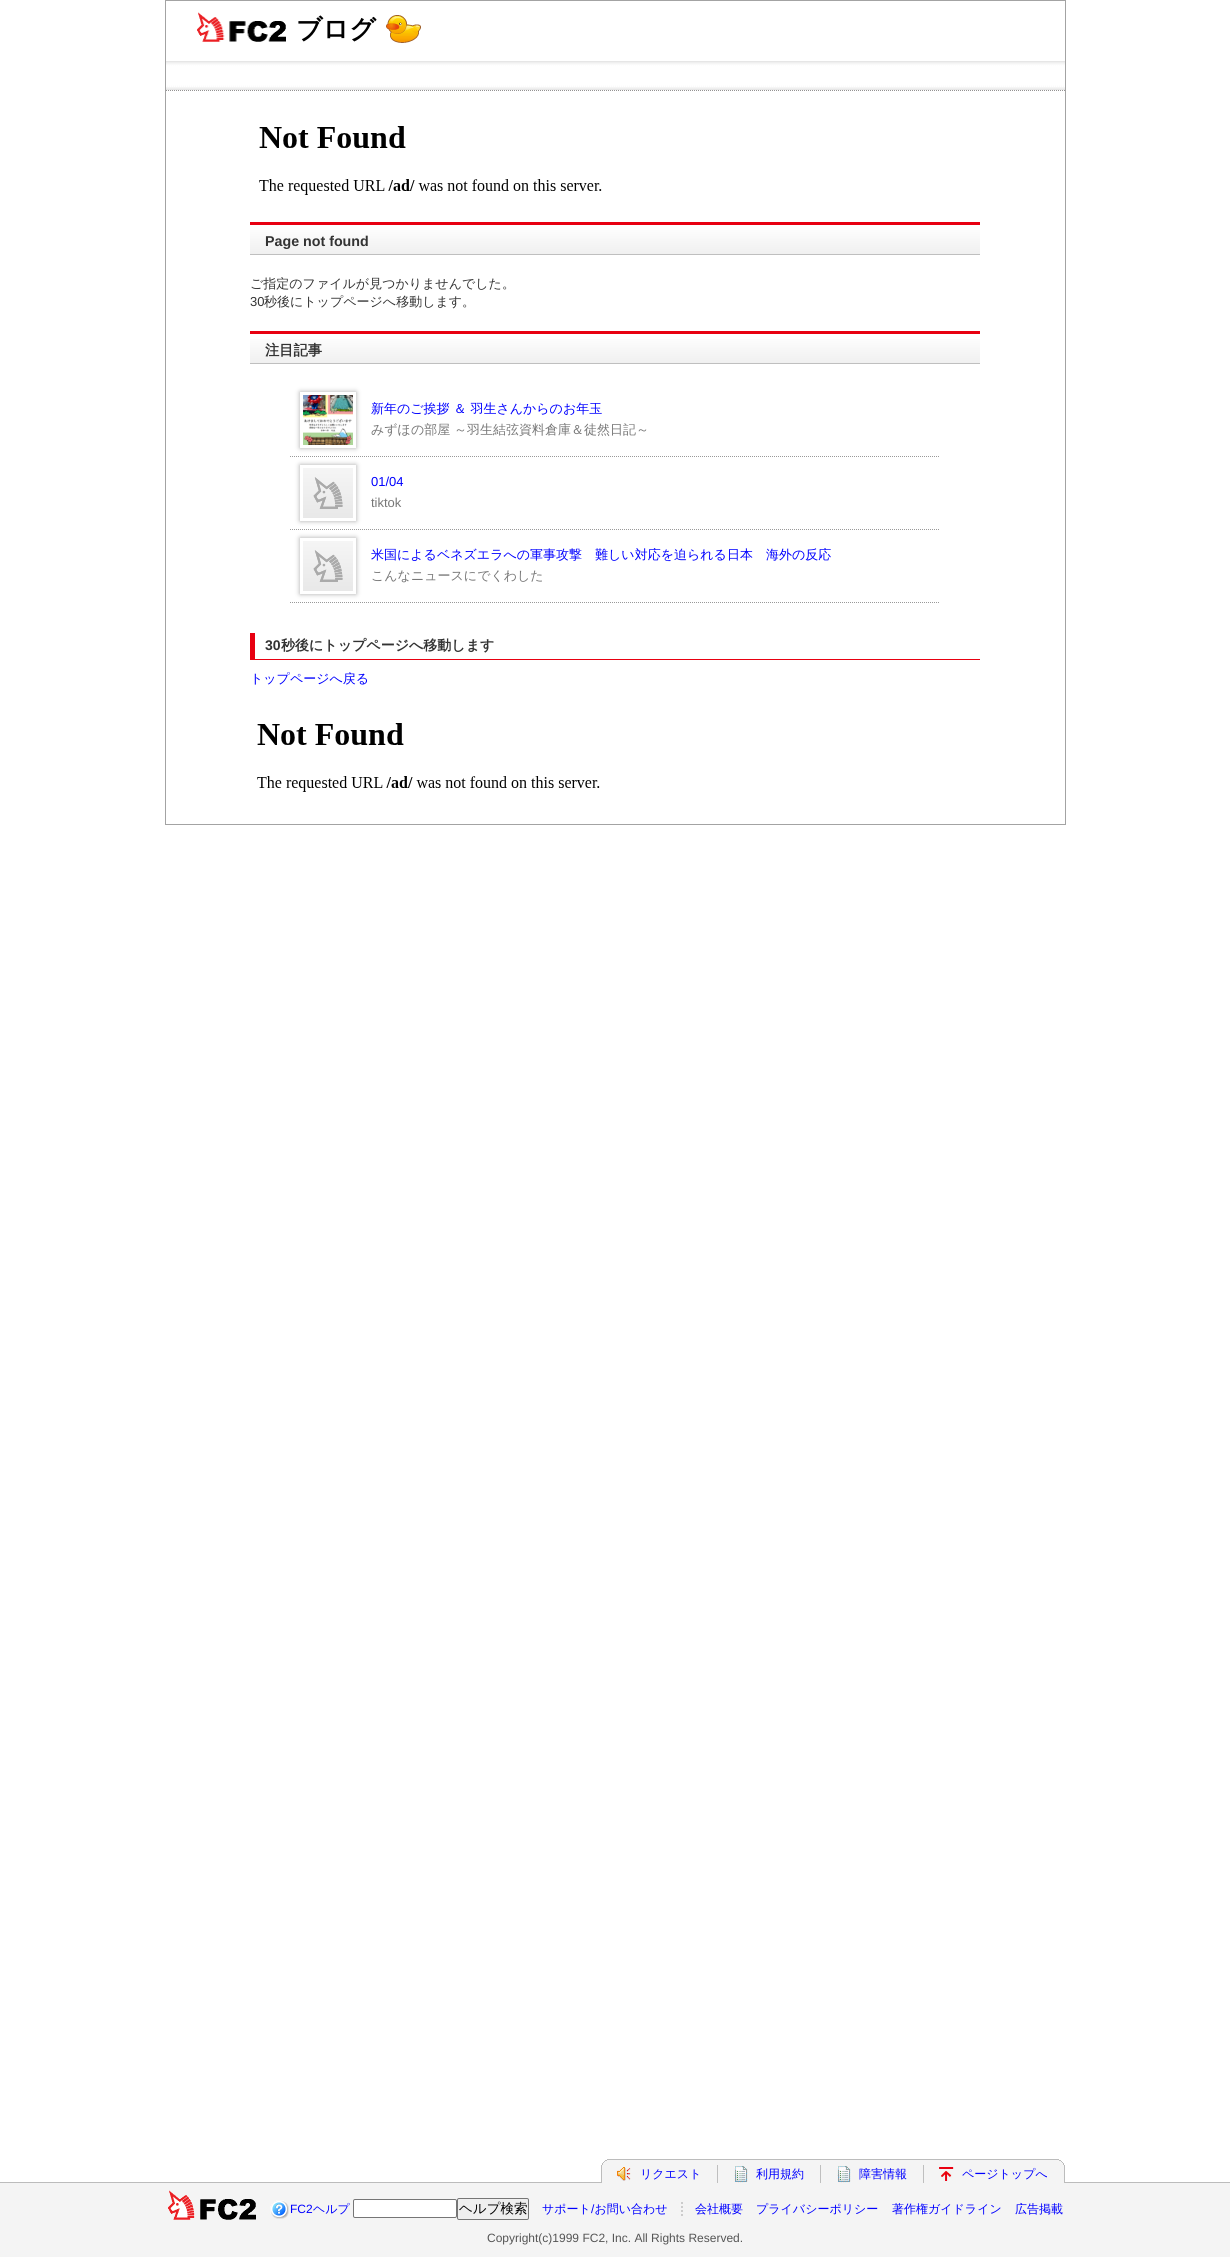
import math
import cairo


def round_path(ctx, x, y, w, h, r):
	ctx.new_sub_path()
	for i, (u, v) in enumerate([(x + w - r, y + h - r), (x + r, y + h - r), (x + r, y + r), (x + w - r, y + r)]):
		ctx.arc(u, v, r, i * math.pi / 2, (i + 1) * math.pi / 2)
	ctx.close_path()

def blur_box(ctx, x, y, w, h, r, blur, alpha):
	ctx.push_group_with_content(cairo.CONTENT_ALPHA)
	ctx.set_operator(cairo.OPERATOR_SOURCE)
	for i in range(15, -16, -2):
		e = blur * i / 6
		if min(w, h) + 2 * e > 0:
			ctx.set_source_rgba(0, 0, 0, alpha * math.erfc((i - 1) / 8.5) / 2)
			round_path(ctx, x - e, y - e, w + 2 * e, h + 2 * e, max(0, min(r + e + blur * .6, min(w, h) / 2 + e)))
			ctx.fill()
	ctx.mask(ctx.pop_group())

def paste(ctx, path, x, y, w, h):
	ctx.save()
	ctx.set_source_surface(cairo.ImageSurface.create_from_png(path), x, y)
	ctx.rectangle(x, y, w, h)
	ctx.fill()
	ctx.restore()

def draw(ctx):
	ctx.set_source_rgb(1, 1, 1)
	ctx.paint()
	ctx.rectangle(165.5, 0.5, 900, 824)
	ctx.set_source_rgb(0.639, 0.639, 0.639)
	ctx.set_line_width(1)
	ctx.stroke()
	paste(ctx, 'media/1.png', 197, 12, 89, 30)
	paste(ctx, 'media/2.png', 386, 15, 35, 28)
	ctx.select_font_face('WenQuanYi Zen Hei', cairo.FONT_SLANT_NORMAL, cairo.FONT_WEIGHT_BOLD)
	ctx.set_font_size(26)
	ctx.set_source_rgb(0, 0, 0)
	ctx.move_to(296, 38)
	ctx.show_text('ブログ')
	paste(ctx, 'media/3.png', 166, 61, 899, 30)
	paste(ctx, 'media/4.png', 259, 126, 343, 69)
	gradient = cairo.LinearGradient(250, 225, 250, 254)
	gradient.add_color_stop_rgba(0, 1, 1, 1, 1)
	gradient.add_color_stop_rgba(1, 0.941, 0.941, 0.941, 1)
	ctx.set_source(gradient)
	ctx.rectangle(250, 230, 730, 24)
	ctx.fill()
	ctx.set_source_rgb(0.91, 0, 0.067)
	ctx.rectangle(250, 222, 730, 3)
	ctx.fill()
	ctx.set_source_rgb(0.749, 0.749, 0.749)
	ctx.rectangle(250, 254, 730, 1)
	ctx.fill()
	ctx.select_font_face('Liberation Sans', cairo.FONT_SLANT_NORMAL, cairo.FONT_WEIGHT_BOLD)
	ctx.set_font_size(14.25)
	ctx.set_source_rgb(0.2, 0.2, 0.2)
	ctx.move_to(265, 246)
	ctx.show_text('Page not found')
	ctx.select_font_face('WenQuanYi Zen Hei Medium')
	ctx.set_font_size(13)
	ctx.move_to(250, 288)
	ctx.show_text('ご指定のファイルが見つかりませんでした。')
	ctx.select_font_face('Liberation Sans')
	ctx.move_to(250, 306)
	ctx.show_text('30')
	ctx.select_font_face('WenQuanYi Zen Hei Medium')
	ctx.move_to(264, 306)
	ctx.show_text('秒後にトップページへ移動します。')
	gradient = cairo.LinearGradient(250, 334, 250, 363)
	gradient.add_color_stop_rgba(0, 1, 1, 1, 1)
	gradient.add_color_stop_rgba(1, 0.941, 0.941, 0.941, 1)
	ctx.set_source(gradient)
	ctx.rectangle(250, 339, 730, 24)
	ctx.fill()
	ctx.set_source_rgb(0.91, 0, 0.067)
	ctx.rectangle(250, 331, 730, 3)
	ctx.fill()
	ctx.set_source_rgb(0.749, 0.749, 0.749)
	ctx.rectangle(250, 363, 730, 1)
	ctx.fill()
	ctx.select_font_face('WenQuanYi Zen Hei', cairo.FONT_SLANT_NORMAL, cairo.FONT_WEIGHT_BOLD)
	ctx.set_font_size(14.25)
	ctx.set_source_rgb(0.2, 0.2, 0.2)
	ctx.move_to(265, 355)
	ctx.show_text('注目記事')
	ctx.new_path()
	ctx.move_to(290, 456.5)
	ctx.line_to(940, 456.5)
	ctx.set_source_rgb(0.6, 0.6, 0.6)
	ctx.set_dash([1, 1])
	ctx.stroke()
	ctx.save()
	ctx.set_fill_rule(cairo.FILL_RULE_EVEN_ODD)
	ctx.new_path()
	ctx.move_to(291, 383)
	ctx.line_to(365, 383)
	ctx.line_to(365, 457)
	ctx.line_to(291, 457)
	ctx.close_path()
	ctx.move_to(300, 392)
	ctx.line_to(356, 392)
	ctx.line_to(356, 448)
	ctx.line_to(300, 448)
	ctx.close_path()
	ctx.clip()
	ctx.set_source_rgb(0.667, 0.667, 0.667)
	blur_box(ctx, 300, 392, 56, 56, 0, 2.5, 1)
	ctx.restore()
	paste(ctx, 'media/5.png', 303, 395, 50, 50)
	ctx.select_font_face('WenQuanYi Zen Hei Medium')
	ctx.set_font_size(13)
	ctx.set_source_rgb(0, 0, 1)
	ctx.move_to(371, 413)
	ctx.show_text('新年のご挨拶 ＆ 羽生さんからのお年玉')
	ctx.set_source_rgb(0.467, 0.467, 0.467)
	ctx.move_to(371, 434)
	ctx.show_text('みずほの部屋 ～羽生結弦資料倉庫＆徒然日記～')
	ctx.new_path()
	ctx.move_to(290, 529.5)
	ctx.line_to(940, 529.5)
	ctx.set_source_rgb(0.6, 0.6, 0.6)
	ctx.stroke()
	ctx.save()
	ctx.set_fill_rule(cairo.FILL_RULE_EVEN_ODD)
	ctx.new_path()
	ctx.move_to(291, 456)
	ctx.line_to(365, 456)
	ctx.line_to(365, 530)
	ctx.line_to(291, 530)
	ctx.close_path()
	ctx.move_to(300, 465)
	ctx.line_to(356, 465)
	ctx.line_to(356, 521)
	ctx.line_to(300, 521)
	ctx.close_path()
	ctx.clip()
	ctx.set_source_rgb(0.667, 0.667, 0.667)
	blur_box(ctx, 300, 465, 56, 56, 0, 2.5, 1)
	ctx.restore()
	paste(ctx, 'media/6.png', 303, 468, 50, 50)
	ctx.select_font_face('Liberation Sans')
	ctx.set_source_rgb(0, 0, 1)
	ctx.move_to(371, 486)
	ctx.show_text('01/04')
	ctx.set_source_rgb(0.467, 0.467, 0.467)
	ctx.move_to(371, 507)
	ctx.show_text('tiktok')
	ctx.new_path()
	ctx.move_to(290, 602.5)
	ctx.line_to(940, 602.5)
	ctx.set_source_rgb(0.6, 0.6, 0.6)
	ctx.stroke()
	ctx.save()
	ctx.set_fill_rule(cairo.FILL_RULE_EVEN_ODD)
	ctx.new_path()
	ctx.move_to(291, 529)
	ctx.line_to(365, 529)
	ctx.line_to(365, 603)
	ctx.line_to(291, 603)
	ctx.close_path()
	ctx.move_to(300, 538)
	ctx.line_to(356, 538)
	ctx.line_to(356, 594)
	ctx.line_to(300, 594)
	ctx.close_path()
	ctx.clip()
	ctx.set_source_rgb(0.667, 0.667, 0.667)
	blur_box(ctx, 300, 538, 56, 56, 0, 2.5, 1)
	ctx.restore()
	paste(ctx, 'media/6.png', 303, 541, 50, 50)
	ctx.select_font_face('WenQuanYi Zen Hei Medium')
	ctx.set_source_rgb(0, 0, 1)
	ctx.move_to(371, 559)
	ctx.show_text('米国によるベネズエラへの軍事攻撃　難しい対応を迫られる日本　海外の反応')
	ctx.set_source_rgb(0.467, 0.467, 0.467)
	ctx.move_to(371, 580)
	ctx.show_text('こんなニュースにでくわした')
	ctx.set_source_rgb(0.91, 0, 0.067)
	ctx.rectangle(250, 659, 730, 1)
	ctx.fill()
	ctx.rectangle(250, 633, 5, 27)
	ctx.fill()
	ctx.select_font_face('Liberation Sans', cairo.FONT_SLANT_NORMAL, cairo.FONT_WEIGHT_BOLD)
	ctx.set_font_size(14)
	ctx.set_source_rgb(0.2, 0.2, 0.2)
	ctx.move_to(265, 650)
	ctx.show_text('30')
	ctx.select_font_face('WenQuanYi Zen Hei', cairo.FONT_SLANT_NORMAL, cairo.FONT_WEIGHT_BOLD)
	ctx.move_to(281, 650)
	ctx.show_text('秒後にトップページへ移動します')
	ctx.select_font_face('WenQuanYi Zen Hei Medium')
	ctx.set_font_size(13)
	ctx.set_source_rgb(0, 0, 1)
	ctx.move_to(250, 683)
	ctx.show_text('トップページへ戻る')
	paste(ctx, 'media/4.png', 257, 723, 343, 69)
	ctx.set_source_rgb(0.737, 0.737, 0.737)
	ctx.rectangle(607, 2159, 452, 1)
	ctx.fill()
	ctx.set_source_rgb(0.957, 0.957, 0.957)
	ctx.rectangle(605, 2160, 456, 1)
	ctx.fill()
	ctx.set_source_rgb(0.737, 0.737, 0.737)
	ctx.rectangle(1059, 2160, 2, 1)
	ctx.rectangle(605, 2160, 2, 1)
	ctx.fill()
	ctx.set_source_rgb(0.957, 0.957, 0.957)
	ctx.rectangle(604, 2161, 458, 1)
	ctx.fill()
	ctx.set_source_rgb(0.737, 0.737, 0.737)
	ctx.rectangle(1061, 2161, 1, 1)
	ctx.rectangle(604, 2161, 1, 1)
	ctx.fill()
	ctx.set_source_rgb(0.957, 0.957, 0.957)
	ctx.rectangle(603, 2162, 460, 1)
	ctx.fill()
	ctx.set_source_rgb(0.737, 0.737, 0.737)
	ctx.rectangle(1062, 2162, 1, 1)
	ctx.rectangle(603, 2162, 1, 1)
	ctx.rectangle(0, 2182, 1230, 1)
	ctx.fill()
	ctx.set_source_rgb(0.957, 0.957, 0.957)
	ctx.rectangle(602, 2163, 462, 20)
	ctx.fill()
	ctx.set_source_rgb(0.737, 0.737, 0.737)
	ctx.rectangle(1063, 2163, 1, 2)
	ctx.rectangle(602, 2163, 1, 2)
	ctx.rectangle(1064, 2165, 1, 18)
	ctx.rectangle(601, 2165, 1, 18)
	ctx.fill()
	paste(ctx, 'media/7.png', 616, 2167, 15, 14)
	ctx.set_source_rgb(0.749, 0.749, 0.749)
	ctx.rectangle(717, 2165, 1, 18)
	ctx.fill()
	ctx.set_font_size(12)
	ctx.set_source_rgb(0, 0, 1)
	ctx.move_to(640, 2178)
	ctx.show_text('リクエスト')
	paste(ctx, 'media/8.png', 734, 2166, 14, 17)
	ctx.set_source_rgb(0.749, 0.749, 0.749)
	ctx.rectangle(820, 2165, 1, 18)
	ctx.fill()
	ctx.set_source_rgb(0, 0, 1)
	ctx.move_to(756, 2178)
	ctx.show_text('利用規約')
	paste(ctx, 'media/8.png', 837, 2166, 14, 17)
	ctx.set_source_rgb(0.749, 0.749, 0.749)
	ctx.rectangle(923, 2165, 1, 18)
	ctx.fill()
	ctx.set_source_rgb(0, 0, 1)
	ctx.move_to(859, 2178)
	ctx.show_text('障害情報')
	paste(ctx, 'media/9.png', 939, 2167, 15, 14)
	ctx.move_to(962, 2178)
	ctx.show_text('ページトップへ')
	ctx.set_source_rgb(0.957, 0.957, 0.957)
	ctx.rectangle(0, 2183, 1230, 74)
	ctx.fill()
	paste(ctx, 'media/10.png', 168, 2190, 88, 30)
	paste(ctx, 'media/11.png', 270, 2200, 19, 19)
	ctx.select_font_face('Liberation Sans')
	ctx.set_source_rgb(0, 0, 1)
	ctx.move_to(290, 2213)
	ctx.show_text('FC2')
	ctx.select_font_face('WenQuanYi Zen Hei Medium')
	ctx.move_to(313, 2213)
	ctx.show_text('ヘルプ')
	ctx.set_source_rgb(1, 1, 1)
	round_path(ctx, 353.5, 2199.5, 103, 18, 1.5)
	ctx.fill_preserve()
	ctx.set_source_rgb(0.463, 0.463, 0.463)
	ctx.set_dash([])
	ctx.stroke()
	ctx.set_source_rgb(0.937, 0.937, 0.937)
	round_path(ctx, 457.5, 2198.5, 71, 21, 1.5)
	ctx.fill_preserve()
	ctx.set_source_rgb(0.463, 0.463, 0.463)
	ctx.stroke()
	ctx.set_font_size(13.5)
	ctx.set_source_rgb(0, 0, 0)
	ctx.move_to(459, 2213)
	ctx.show_text('ヘルプ検索')
	ctx.set_font_size(12)
	ctx.set_source_rgb(0, 0, 1)
	ctx.move_to(542, 2213)
	ctx.show_text('サポート お問い合わせ')
	ctx.move_to(695, 2213)
	ctx.show_text('会社概要')
	ctx.new_path()
	ctx.move_to(682, 2202)
	ctx.line_to(682, 2204)
	ctx.move_to(682, 2206)
	ctx.line_to(682, 2208)
	ctx.move_to(682, 2210)
	ctx.line_to(682, 2212)
	ctx.move_to(682, 2214)
	ctx.line_to(682, 2216)
	ctx.set_source_rgb(0.8, 0.8, 0.8)
	ctx.set_line_width(2)
	ctx.stroke()
	ctx.set_source_rgb(0, 0, 1)
	for x, y, s in [
		(756, 2213, 'プライバシーポリシー'),
		(892, 2213, '著作権ガイドライン'),
		(1015, 2213, '広告掲載'),
	]:
		ctx.move_to(x, y)
		ctx.show_text(s)
	ctx.select_font_face('Liberation Sans')
	ctx.move_to(591, 2213)
	ctx.show_text('/')
	ctx.set_source_rgb(0.333, 0.333, 0.333)
	ctx.move_to(487, 2242)
	ctx.show_text('Copyright(c)1999 FC2, Inc. All Rights Reserved.')


surface = cairo.ImageSurface(cairo.FORMAT_RGB24, 1230, 2258)
ctx = cairo.Context(surface)
options = cairo.FontOptions()
options.set_hint_metrics(cairo.HINT_METRICS_OFF)
options.set_hint_style(cairo.HINT_STYLE_NONE)
ctx.set_font_options(options)
ctx.set_miter_limit(4)
draw(ctx)
surface.write_to_png('image.png')
